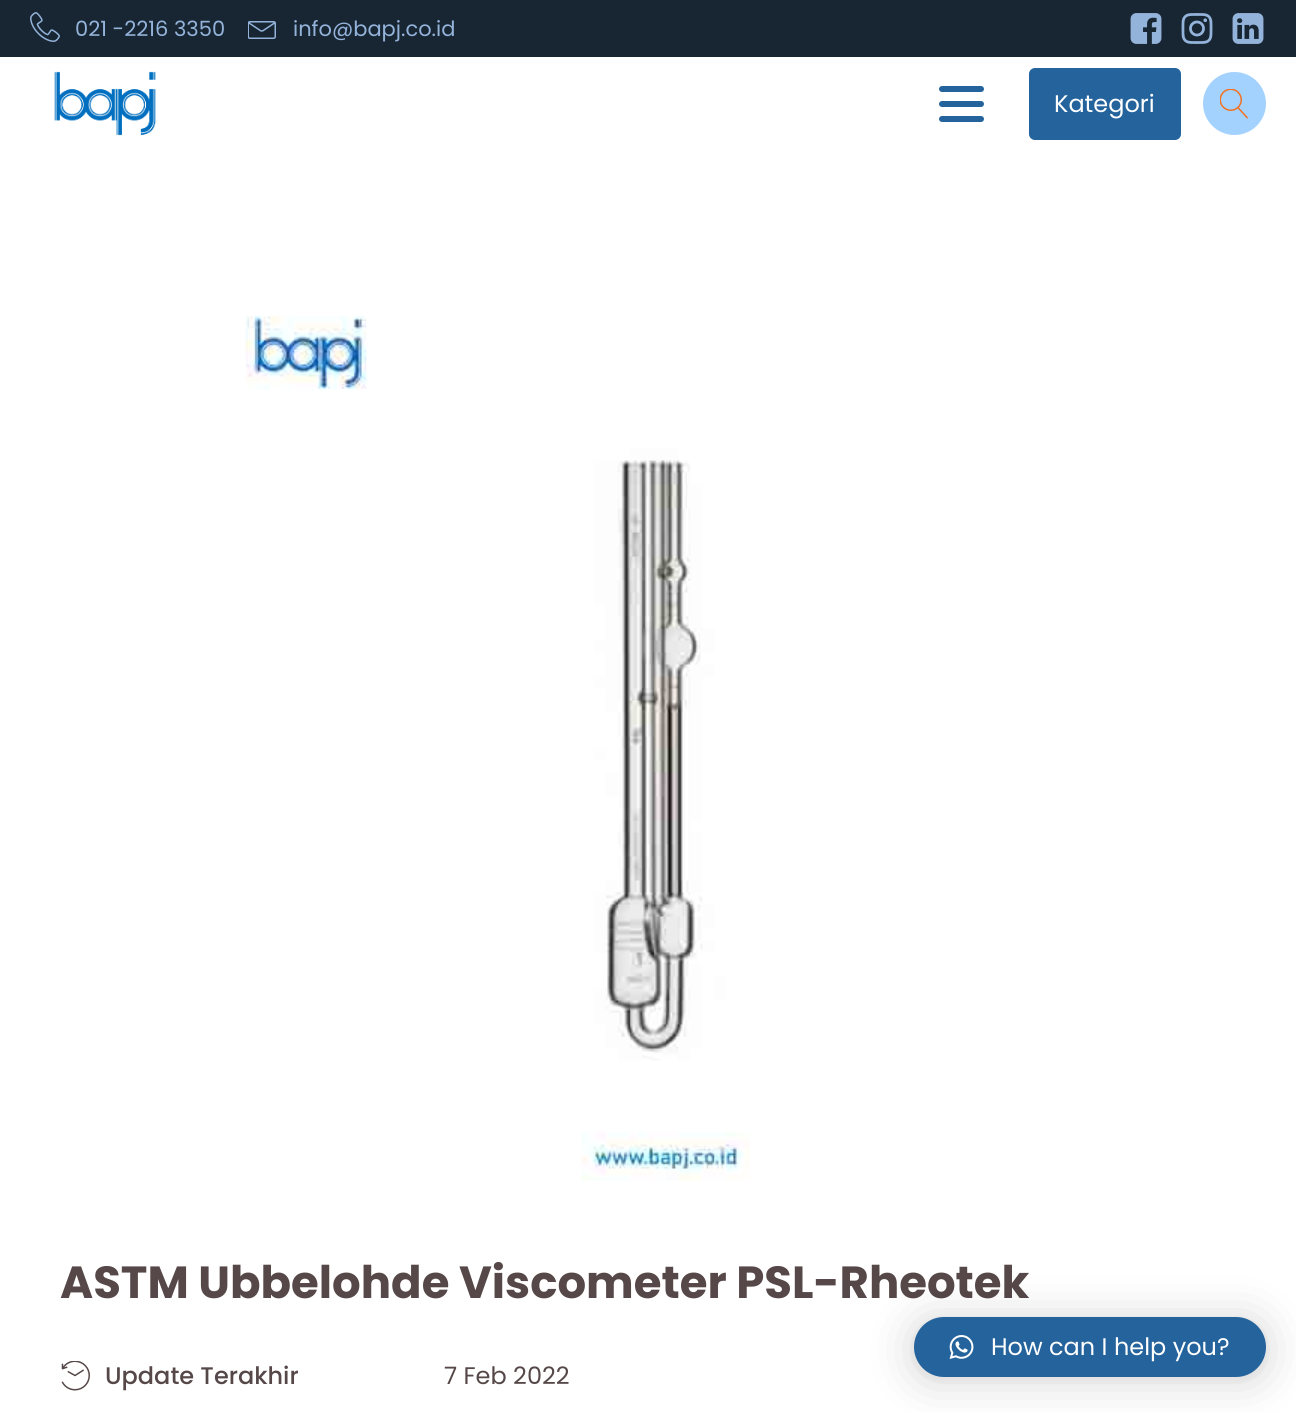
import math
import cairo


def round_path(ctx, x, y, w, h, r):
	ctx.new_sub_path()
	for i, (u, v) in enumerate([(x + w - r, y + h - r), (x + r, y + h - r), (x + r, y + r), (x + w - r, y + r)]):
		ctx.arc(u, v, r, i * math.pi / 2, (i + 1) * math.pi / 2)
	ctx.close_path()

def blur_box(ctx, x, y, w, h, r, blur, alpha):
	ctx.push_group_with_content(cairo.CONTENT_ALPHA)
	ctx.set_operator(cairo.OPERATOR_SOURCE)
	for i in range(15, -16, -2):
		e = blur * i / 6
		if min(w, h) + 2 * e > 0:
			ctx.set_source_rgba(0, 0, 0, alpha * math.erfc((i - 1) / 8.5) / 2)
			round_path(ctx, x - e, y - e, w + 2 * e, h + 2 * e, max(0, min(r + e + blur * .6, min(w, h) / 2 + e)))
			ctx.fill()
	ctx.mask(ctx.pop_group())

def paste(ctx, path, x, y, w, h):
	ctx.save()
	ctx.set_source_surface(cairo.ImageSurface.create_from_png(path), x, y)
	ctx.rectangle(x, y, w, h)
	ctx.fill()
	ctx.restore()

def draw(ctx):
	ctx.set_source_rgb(1, 1, 1)
	ctx.paint()
	ctx.set_source_rgb(0.094, 0.149, 0.2)
	ctx.rectangle(0, 0, 1296, 57)
	ctx.fill()
	paste(ctx, 'media/1.png', 30, 12, 30, 30)
	ctx.select_font_face('Poppins')
	ctx.set_font_size(21)
	ctx.set_source_rgb(0.58, 0.702, 0.855)
	ctx.move_to(75, 36)
	ctx.show_text('021 -2216 3350')
	paste(ctx, 'media/2.png', 248, 21, 28, 18)
	ctx.move_to(293, 36)
	ctx.show_text('info@bapj.co.id')
	paste(ctx, 'media/3.png', 1130, 13, 32, 31)
	paste(ctx, 'media/4.png', 1181, 13, 32, 31)
	paste(ctx, 'media/5.png', 1232, 13, 32, 31)
	paste(ctx, 'media/6.png', 54, 71, 102, 65)
	ctx.set_source_rgb(0.141, 0.388, 0.612)
	round_path(ctx, 939, 86, 45, 6, 3)
	ctx.fill()
	round_path(ctx, 939, 101, 45, 6, 3)
	ctx.fill()
	round_path(ctx, 939, 116, 45, 6, 3)
	ctx.fill()
	round_path(ctx, 1030, 69, 150, 70, 5)
	ctx.fill_preserve()
	ctx.stroke()
	ctx.set_font_size(24)
	ctx.set_source_rgb(1, 1, 1)
	ctx.move_to(1054, 112)
	ctx.show_text('Kategori')
	ctx.set_source_rgb(0.639, 0.824, 1)
	ctx.new_path()
	ctx.arc(1234.5, 103.5, 30.5, 0, 2 * math.pi)
	ctx.fill_preserve()
	ctx.stroke()
	paste(ctx, 'media/7.png', 1220, 89, 28, 30)
	paste(ctx, 'media/8.png', 245, 315, 505, 866)
	ctx.select_font_face('Poppins', cairo.FONT_SLANT_NORMAL, cairo.FONT_WEIGHT_BOLD)
	ctx.set_font_size(45)
	ctx.set_source_rgb(0.337, 0.282, 0.282)
	ctx.move_to(60, 1298)
	ctx.show_text('ASTM Ubbelohde Viscometer PSL-Rheotek')
	paste(ctx, 'media/9.png', 61, 1361, 29, 30)
	ctx.select_font_face('Poppins Medium')
	ctx.set_font_size(24)
	ctx.move_to(105, 1384)
	ctx.show_text('Update Terakhir')
	ctx.select_font_face('Poppins')
	ctx.move_to(444, 1384)
	ctx.show_text('7 Feb 2022')
	ctx.set_source_rgb(0, 0, 0)
	blur_box(ctx, 914, 1320, 352, 60, 30, 24, 0.16)
	blur_box(ctx, 914, 1319, 352, 60, 30, 4.5, 0.06)
	ctx.set_source_rgb(0.141, 0.388, 0.612)
	round_path(ctx, 914, 1317, 352, 60, 30)
	ctx.fill()
	paste(ctx, 'media/10.png', 949, 1335, 25, 24)
	ctx.set_source_rgb(1, 1, 1)
	ctx.move_to(991, 1355)
	ctx.show_text('How can I help you?')


surface = cairo.ImageSurface(cairo.FORMAT_RGB24, 1296, 1412)
ctx = cairo.Context(surface)
options = cairo.FontOptions()
options.set_hint_metrics(cairo.HINT_METRICS_OFF)
options.set_hint_style(cairo.HINT_STYLE_NONE)
ctx.set_font_options(options)
ctx.set_miter_limit(4)
draw(ctx)
surface.write_to_png('image.png')
